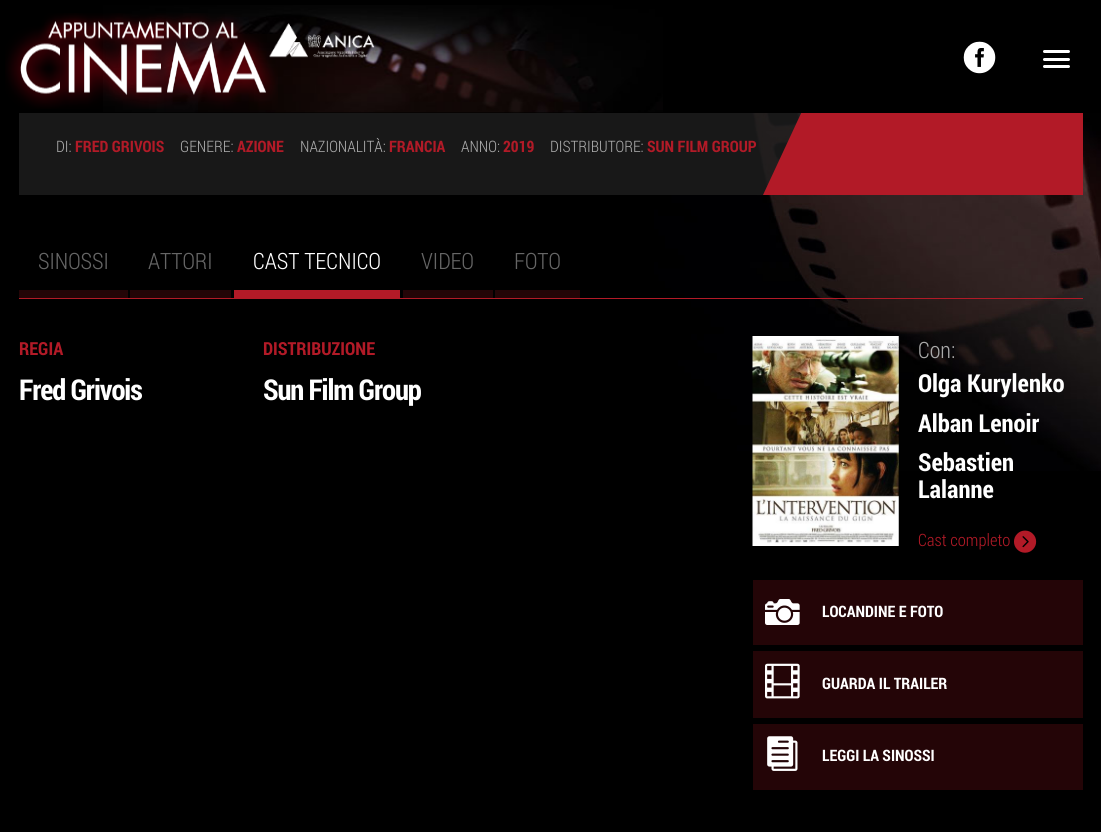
import math
import cairo


def write_spaced(ctx, x, y, s, letter, word):
	ctx.move_to(x, y)
	for ch in s:
		ctx.show_text(ch)
		ctx.rel_move_to(letter + word * (ch == ' '), 0)

def round_path(ctx, x, y, w, h, r):
	ctx.new_sub_path()
	for i, (u, v) in enumerate([(x + w - r, y + h - r), (x + r, y + h - r), (x + r, y + r), (x + w - r, y + r)]):
		ctx.arc(u, v, r, i * math.pi / 2, (i + 1) * math.pi / 2)
	ctx.close_path()

def paste(ctx, path, x, y, w, h):
	ctx.save()
	ctx.set_source_surface(cairo.ImageSurface.create_from_png(path), x, y)
	ctx.rectangle(x, y, w, h)
	ctx.fill()
	ctx.restore()

def draw(ctx):
	ctx.set_source_rgb(0, 0, 0)
	ctx.paint()
	paste(ctx, 'media/1.png', 654, 113, 447, 358)
	ctx.set_source_rgba(0.129, 0.129, 0.129, 0.5)
	ctx.rectangle(19, 113, 783, 82)
	ctx.fill()
	ctx.rectangle(19, 113, 783, 82)
	ctx.fill()
	ctx.set_source_rgb(0.698, 0.102, 0.153)
	ctx.rectangle(1078, 184, 5, 11)
	ctx.fill()
	ctx.save()
	ctx.rectangle(19, 4, 1064, 191)
	ctx.clip()
	ctx.new_path()
	ctx.move_to(852, 4)
	ctx.line_to(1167, 4)
	ctx.line_to(1078, 195)
	ctx.line_to(763, 195)
	ctx.close_path()
	ctx.fill()
	ctx.restore()
	ctx.set_source_rgb(0, 0, 0)
	ctx.rectangle(801, 4, 282, 109)
	ctx.fill()
	paste(ctx, 'media/2.png', 103, 5, 560, 108)
	paste(ctx, 'media/3.png', 5, 13, 273, 96)
	paste(ctx, 'media/4.png', 269, 23, 106, 35)
	ctx.set_source_rgb(1, 1, 1)
	round_path(ctx, 1043, 50, 27, 3, 1.5)
	ctx.fill()
	round_path(ctx, 1043, 58, 27, 3, 1.5)
	ctx.fill()
	round_path(ctx, 1043, 65, 27, 3, 1.5)
	ctx.fill()
	paste(ctx, 'media/5.png', 963, 41, 33, 33)
	ctx.select_font_face('Roboto Condensed Light')
	ctx.set_font_size(15.75)
	ctx.set_source_rgb(0.667, 0.667, 0.667)
	ctx.move_to(56, 152)
	ctx.show_text('DI:')
	ctx.select_font_face('Roboto Condensed', cairo.FONT_SLANT_NORMAL, cairo.FONT_WEIGHT_BOLD)
	ctx.set_source_rgb(0.698, 0.102, 0.153)
	ctx.move_to(75, 152)
	ctx.show_text('FRED GRIVOIS')
	ctx.select_font_face('Roboto Condensed Light')
	ctx.set_source_rgb(0.667, 0.667, 0.667)
	ctx.move_to(180, 152)
	ctx.show_text('GENERE:')
	ctx.select_font_face('Roboto Condensed', cairo.FONT_SLANT_NORMAL, cairo.FONT_WEIGHT_BOLD)
	ctx.set_source_rgb(0.698, 0.102, 0.153)
	ctx.move_to(237, 152)
	ctx.show_text('AZIONE')
	ctx.select_font_face('Roboto Condensed Light')
	ctx.set_source_rgb(0.667, 0.667, 0.667)
	ctx.move_to(300, 152)
	ctx.show_text('NAZIONALITÀ:')
	ctx.select_font_face('Roboto Condensed', cairo.FONT_SLANT_NORMAL, cairo.FONT_WEIGHT_BOLD)
	ctx.set_source_rgb(0.698, 0.102, 0.153)
	ctx.move_to(389, 152)
	ctx.show_text('FRANCIA')
	ctx.select_font_face('Roboto Condensed Light')
	ctx.set_source_rgb(0.667, 0.667, 0.667)
	ctx.move_to(461, 152)
	ctx.show_text('ANNO:')
	ctx.select_font_face('Roboto Condensed', cairo.FONT_SLANT_NORMAL, cairo.FONT_WEIGHT_BOLD)
	ctx.set_source_rgb(0.698, 0.102, 0.153)
	ctx.move_to(503, 152)
	ctx.show_text('2019')
	ctx.select_font_face('Roboto Condensed Light')
	ctx.set_source_rgb(0.667, 0.667, 0.667)
	ctx.move_to(550, 152)
	ctx.show_text('DISTRIBUTORE:')
	ctx.select_font_face('Roboto Condensed', cairo.FONT_SLANT_NORMAL, cairo.FONT_WEIGHT_BOLD)
	ctx.set_source_rgb(0.698, 0.102, 0.153)
	ctx.move_to(647, 152)
	ctx.show_text('SUN FILM GROUP')
	ctx.rectangle(19, 298, 1064, 1)
	ctx.fill()
	ctx.set_source_rgb(0.141, 0.02, 0.031)
	ctx.rectangle(19, 290, 109, 8)
	ctx.fill()
	ctx.select_font_face('Roboto Condensed Light')
	ctx.set_font_size(22.5)
	ctx.set_source_rgb(0.4, 0.4, 0.4)
	ctx.move_to(38, 269)
	ctx.show_text('SINOSSI')
	ctx.set_source_rgb(0.141, 0.02, 0.031)
	ctx.rectangle(130, 290, 101, 8)
	ctx.fill()
	ctx.set_source_rgb(0.4, 0.4, 0.4)
	ctx.move_to(148, 269)
	ctx.show_text('ATTORI')
	ctx.set_source_rgb(0.698, 0.102, 0.153)
	ctx.rectangle(234, 290, 166, 8)
	ctx.fill()
	ctx.set_source_rgb(1, 1, 1)
	ctx.move_to(253, 269)
	ctx.show_text('CAST TECNICO')
	ctx.set_source_rgb(0.141, 0.02, 0.031)
	ctx.rectangle(403, 290, 90, 8)
	ctx.fill()
	ctx.set_source_rgb(0.4, 0.4, 0.4)
	ctx.move_to(421, 269)
	ctx.show_text('VIDEO')
	ctx.set_source_rgb(0.141, 0.02, 0.031)
	ctx.rectangle(495, 290, 85, 8)
	ctx.fill()
	ctx.set_source_rgb(0.4, 0.4, 0.4)
	ctx.move_to(514, 269)
	ctx.show_text('FOTO')
	ctx.select_font_face('Roboto Condensed', cairo.FONT_SLANT_NORMAL, cairo.FONT_WEIGHT_BOLD)
	ctx.set_font_size(18)
	ctx.set_source_rgb(0.698, 0.102, 0.153)
	ctx.move_to(19, 355)
	ctx.show_text('REGIA')
	ctx.set_font_size(28.75)
	ctx.set_source_rgb(1, 1, 1)
	write_spaced(ctx, 19, 400, 'Fred Grivois', -1.1, 0)
	ctx.set_font_size(18)
	ctx.set_source_rgb(0.698, 0.102, 0.153)
	ctx.move_to(263, 355)
	ctx.show_text('DISTRIBUZIONE')
	ctx.set_font_size(28.75)
	ctx.set_source_rgb(1, 1, 1)
	write_spaced(ctx, 263, 400, 'Sun Film Group', -1.1, 0)
	paste(ctx, 'media/6.png', 752, 336, 147, 210)
	ctx.select_font_face('Roboto Condensed Light')
	ctx.set_font_size(22.5)
	ctx.set_source_rgb(0.667, 0.667, 0.667)
	ctx.move_to(918, 358)
	ctx.show_text('Con:')
	ctx.select_font_face('Roboto Condensed', cairo.FONT_SLANT_NORMAL, cairo.FONT_WEIGHT_BOLD)
	ctx.set_font_size(24.75)
	ctx.set_source_rgb(1, 1, 1)
	for x, y, s in [
		(918, 392, 'Olga Kurylenko'),
		(918, 432, 'Alban Lenoir'),
		(918, 471, 'Sebastien'),
		(918, 498, 'Lalanne'),
	]:
		ctx.move_to(x, y)
		ctx.show_text(s)
	ctx.select_font_face('Roboto Condensed Light')
	ctx.set_font_size(17)
	ctx.set_source_rgb(0.698, 0.102, 0.153)
	ctx.move_to(918, 546)
	ctx.show_text('Cast completo')
	paste(ctx, 'media/7.png', 1014, 530, 23, 23)
	ctx.set_source_rgb(0.141, 0.02, 0.031)
	ctx.rectangle(753, 580, 330, 65)
	ctx.fill()
	paste(ctx, 'media/8.png', 765, 599, 35, 26)
	ctx.select_font_face('Roboto Condensed', cairo.FONT_SLANT_NORMAL, cairo.FONT_WEIGHT_BOLD)
	ctx.set_font_size(15.75)
	ctx.set_source_rgb(1, 1, 1)
	ctx.move_to(822, 617)
	ctx.show_text('LOCANDINE E FOTO')
	ctx.set_source_rgb(0.141, 0.02, 0.031)
	ctx.rectangle(753, 651, 330, 67)
	ctx.fill()
	paste(ctx, 'media/9.png', 765, 663, 35, 36)
	ctx.set_source_rgb(1, 1, 1)
	ctx.move_to(822, 689)
	ctx.show_text('GUARDA IL TRAILER')
	ctx.set_source_rgb(0.141, 0.02, 0.031)
	ctx.rectangle(753, 724, 330, 66)
	ctx.fill()
	paste(ctx, 'media/10.png', 767, 736, 31, 35)
	ctx.set_source_rgb(1, 1, 1)
	ctx.move_to(822, 761)
	ctx.show_text('LEGGI LA SINOSSI')


surface = cairo.ImageSurface(cairo.FORMAT_RGB24, 1101, 832)
ctx = cairo.Context(surface)
options = cairo.FontOptions()
options.set_hint_metrics(cairo.HINT_METRICS_OFF)
options.set_hint_style(cairo.HINT_STYLE_NONE)
ctx.set_font_options(options)
ctx.set_miter_limit(4)
draw(ctx)
surface.write_to_png('image.png')
